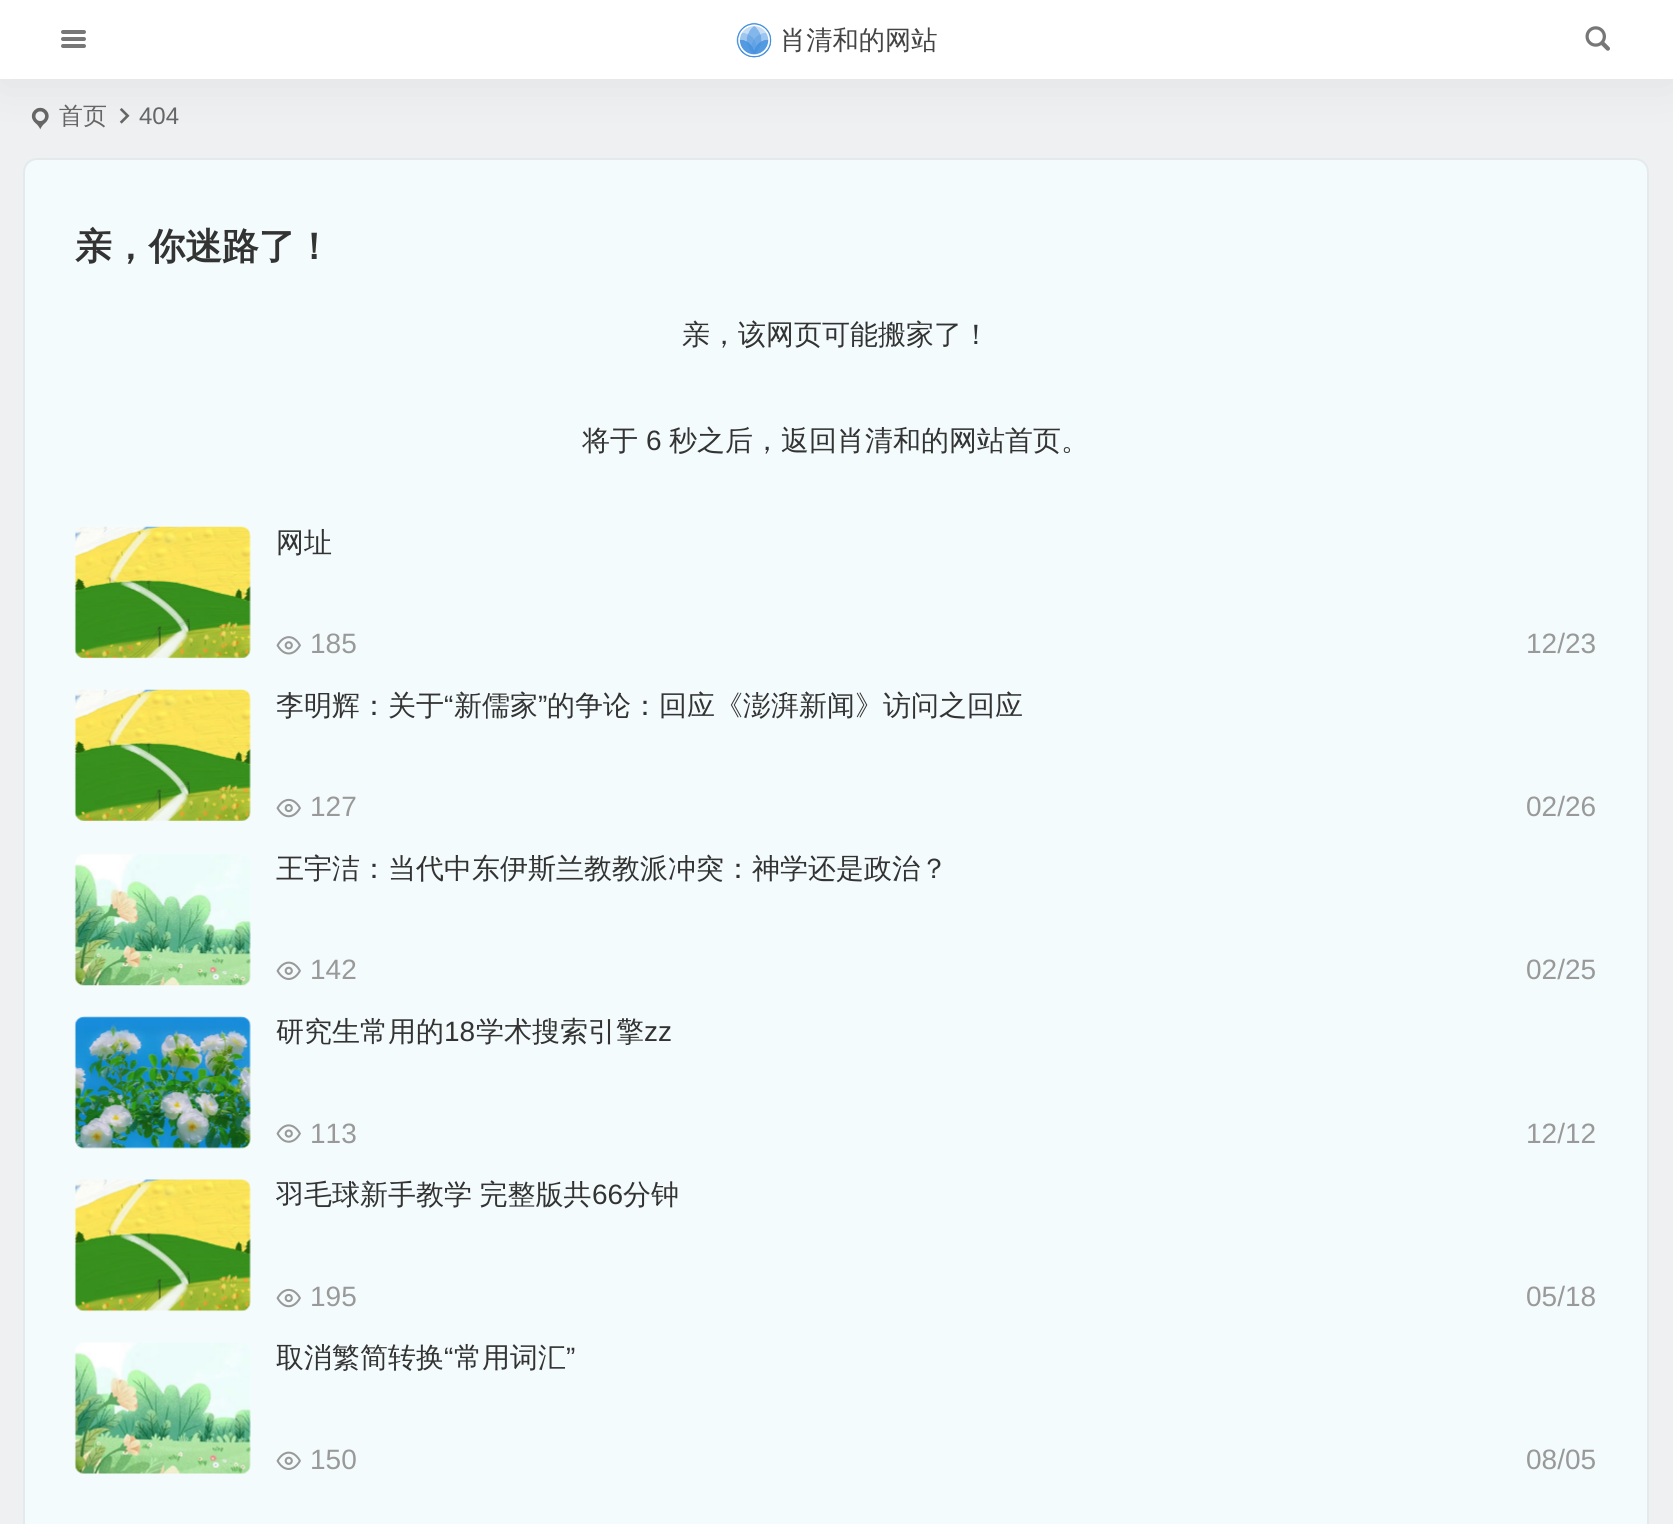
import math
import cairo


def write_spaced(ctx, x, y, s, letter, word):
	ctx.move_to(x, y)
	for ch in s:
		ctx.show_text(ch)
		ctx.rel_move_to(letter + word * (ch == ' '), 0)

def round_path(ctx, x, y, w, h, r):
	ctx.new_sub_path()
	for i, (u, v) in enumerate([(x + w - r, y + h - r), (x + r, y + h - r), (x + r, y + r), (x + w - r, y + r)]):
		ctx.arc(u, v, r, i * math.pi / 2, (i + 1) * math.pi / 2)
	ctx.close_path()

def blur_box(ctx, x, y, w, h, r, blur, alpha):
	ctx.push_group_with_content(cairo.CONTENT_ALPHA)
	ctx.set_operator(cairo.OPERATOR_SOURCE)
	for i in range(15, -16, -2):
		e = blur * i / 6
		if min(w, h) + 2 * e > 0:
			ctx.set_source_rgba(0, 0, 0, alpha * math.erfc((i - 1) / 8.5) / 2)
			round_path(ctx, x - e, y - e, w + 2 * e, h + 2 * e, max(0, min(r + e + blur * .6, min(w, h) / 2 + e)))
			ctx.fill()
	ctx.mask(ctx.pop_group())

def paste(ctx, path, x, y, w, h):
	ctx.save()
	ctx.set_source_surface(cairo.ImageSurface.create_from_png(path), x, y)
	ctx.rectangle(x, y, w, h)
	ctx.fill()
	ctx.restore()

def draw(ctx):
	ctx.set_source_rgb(0.937, 0.941, 0.949)
	ctx.paint()
	paste(ctx, 'media/3.png', 31, 107, 18, 23)
	paste(ctx, 'media/4.png', 119, 108, 11, 16)
	ctx.set_source_rgb(0.957, 0.984, 0.988)
	round_path(ctx, 23, 158, 1626, 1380, 14)
	ctx.fill()
	round_path(ctx, 24, 159, 1624, 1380, 13)
	ctx.set_source_rgba(0, 0, 0, 0.07)
	ctx.stroke()
	ctx.set_source_rgb(0, 0, 0)
	blur_box(ctx, 0, 5, 1673, 79, 0, 26, 0.06)
	ctx.set_source_rgb(1, 1, 1)
	ctx.rectangle(0, 0, 1673, 79)
	ctx.fill()
	ctx.set_source_rgb(0.467, 0.467, 0.467)
	round_path(ctx, 61, 37, 25, 4, 2)
	ctx.fill()
	round_path(ctx, 61, 30, 25, 4, 2)
	ctx.fill()
	round_path(ctx, 61, 44, 25, 4, 2)
	ctx.fill()
	paste(ctx, 'media/1.png', 1585, 26, 25, 25)
	paste(ctx, 'media/2.png', 736, 22, 36, 36)
	ctx.select_font_face('WenQuanYi Zen Hei Medium')
	ctx.set_font_size(26.25)
	ctx.set_source_rgb(0.267, 0.267, 0.267)
	ctx.move_to(780, 49)
	ctx.show_text('肖清和的网站')
	ctx.set_font_size(24)
	ctx.set_source_rgb(0.4, 0.4, 0.4)
	ctx.move_to(59, 124)
	ctx.show_text('首页')
	ctx.select_font_face('Liberation Sans')
	ctx.move_to(139, 124)
	ctx.show_text('404')
	ctx.select_font_face('WenQuanYi Zen Hei', cairo.FONT_SLANT_NORMAL, cairo.FONT_WEIGHT_BOLD)
	ctx.set_font_size(36.75)
	ctx.set_source_rgb(0.2, 0.2, 0.2)
	ctx.move_to(75, 259)
	ctx.show_text('亲，你迷路了！')
	ctx.select_font_face('WenQuanYi Zen Hei Medium')
	ctx.set_font_size(28)
	ctx.move_to(682, 344)
	ctx.show_text('亲，该网页可能搬家了！')
	ctx.move_to(582, 450)
	ctx.show_text('将于')
	ctx.select_font_face('Liberation Sans')
	ctx.move_to(646, 450)
	ctx.show_text('6')
	ctx.select_font_face('WenQuanYi Zen Hei Medium')
	ctx.move_to(669, 450)
	ctx.show_text('秒之后，返回肖清和的网站首页。')
	paste(ctx, 'media/5.png', 74, 526, 177, 133)
	ctx.move_to(276, 552)
	ctx.show_text('网址')
	paste(ctx, 'media/6.png', 276, 636, 25, 19)
	ctx.select_font_face('Liberation Sans')
	ctx.set_source_rgb(0.6, 0.6, 0.6)
	ctx.move_to(310, 653)
	ctx.show_text('185')
	ctx.move_to(1526, 653)
	ctx.show_text('12/23')
	paste(ctx, 'media/7.png', 74, 689, 177, 132)
	ctx.select_font_face('WenQuanYi Zen Hei Medium')
	ctx.set_source_rgb(0.2, 0.2, 0.2)
	ctx.move_to(276, 715)
	ctx.show_text('李明辉：关于')
	ctx.select_font_face('Liberation Sans')
	ctx.move_to(444, 715)
	ctx.show_text('“')
	ctx.select_font_face('WenQuanYi Zen Hei Medium')
	ctx.move_to(454, 715)
	ctx.show_text('新儒家')
	ctx.select_font_face('Liberation Sans')
	ctx.move_to(538, 715)
	ctx.show_text('”')
	ctx.select_font_face('WenQuanYi Zen Hei Medium')
	ctx.move_to(547, 715)
	ctx.show_text('的争论：回应《澎湃新闻》访问之回应')
	paste(ctx, 'media/8.png', 276, 798, 25, 20)
	ctx.select_font_face('Liberation Sans')
	ctx.set_source_rgb(0.6, 0.6, 0.6)
	ctx.move_to(310, 816)
	ctx.show_text('127')
	ctx.move_to(1526, 816)
	ctx.show_text('02/26')
	paste(ctx, 'media/9.png', 74, 854, 177, 132)
	ctx.select_font_face('WenQuanYi Zen Hei Medium')
	ctx.set_source_rgb(0.2, 0.2, 0.2)
	ctx.move_to(276, 878)
	ctx.show_text('王宇洁：当代中东伊斯兰教教派冲突：神学还是政治？')
	paste(ctx, 'media/10.png', 276, 961, 25, 19)
	ctx.select_font_face('Liberation Sans')
	ctx.set_source_rgb(0.6, 0.6, 0.6)
	ctx.move_to(310, 979)
	ctx.show_text('142')
	ctx.move_to(1526, 979)
	ctx.show_text('02/25')
	paste(ctx, 'media/11.png', 74, 1016, 177, 133)
	ctx.select_font_face('WenQuanYi Zen Hei Medium')
	ctx.set_source_rgb(0.2, 0.2, 0.2)
	ctx.move_to(276, 1041)
	ctx.show_text('研究生常用的')
	ctx.select_font_face('Liberation Sans')
	ctx.move_to(444, 1041)
	ctx.show_text('18')
	ctx.select_font_face('WenQuanYi Zen Hei Medium')
	ctx.move_to(476, 1041)
	ctx.show_text('学术搜索引擎')
	ctx.select_font_face('Liberation Sans')
	ctx.move_to(644, 1041)
	ctx.show_text('zz')
	paste(ctx, 'media/12.png', 276, 1124, 25, 19)
	ctx.set_source_rgb(0.6, 0.6, 0.6)
	ctx.move_to(310, 1143)
	ctx.show_text('113')
	ctx.move_to(1526, 1143)
	ctx.show_text('12/12')
	paste(ctx, 'media/13.png', 74, 1179, 177, 133)
	ctx.select_font_face('WenQuanYi Zen Hei Medium')
	ctx.set_source_rgb(0.2, 0.2, 0.2)
	write_spaced(ctx, 276, 1204, '羽毛球新手教学 完整版共', 0, -1)
	ctx.select_font_face('Liberation Sans')
	ctx.move_to(592, 1204)
	ctx.show_text('66')
	ctx.select_font_face('WenQuanYi Zen Hei Medium')
	ctx.move_to(623, 1204)
	ctx.show_text('分钟')
	paste(ctx, 'media/8.png', 276, 1288, 25, 20)
	ctx.select_font_face('Liberation Sans')
	ctx.set_source_rgb(0.6, 0.6, 0.6)
	ctx.move_to(310, 1306)
	ctx.show_text('195')
	ctx.move_to(1526, 1306)
	ctx.show_text('05/18')
	paste(ctx, 'media/14.png', 74, 1342, 177, 132)
	ctx.select_font_face('WenQuanYi Zen Hei Medium')
	ctx.set_source_rgb(0.2, 0.2, 0.2)
	ctx.move_to(276, 1367)
	ctx.show_text('取消繁简转换')
	ctx.select_font_face('Liberation Sans')
	ctx.move_to(444, 1367)
	ctx.show_text('“')
	ctx.select_font_face('WenQuanYi Zen Hei Medium')
	ctx.move_to(454, 1367)
	ctx.show_text('常用词汇')
	ctx.select_font_face('Liberation Sans')
	ctx.move_to(566, 1367)
	ctx.show_text('”')
	paste(ctx, 'media/10.png', 276, 1451, 25, 19)
	ctx.set_source_rgb(0.6, 0.6, 0.6)
	ctx.move_to(310, 1469)
	ctx.show_text('150')
	ctx.move_to(1526, 1469)
	ctx.show_text('08/05')


surface = cairo.ImageSurface(cairo.FORMAT_RGB24, 1673, 1524)
ctx = cairo.Context(surface)
options = cairo.FontOptions()
options.set_hint_metrics(cairo.HINT_METRICS_OFF)
options.set_hint_style(cairo.HINT_STYLE_NONE)
ctx.set_font_options(options)
ctx.set_miter_limit(4)
draw(ctx)
surface.write_to_png('image.png')
